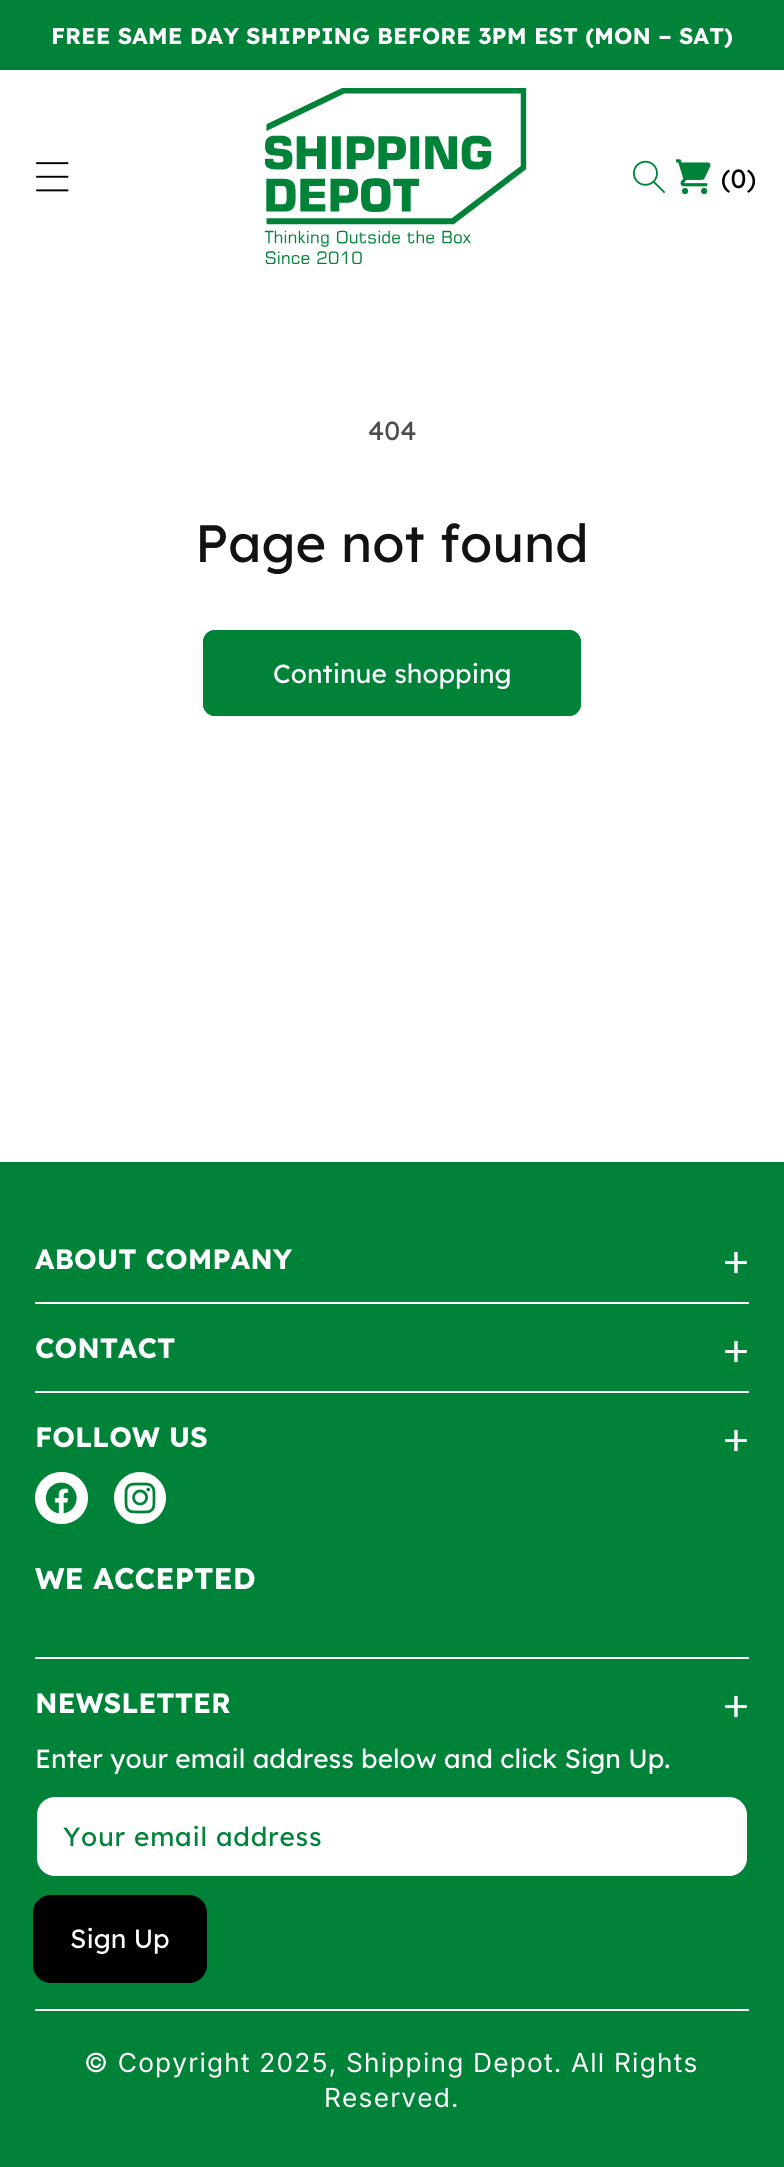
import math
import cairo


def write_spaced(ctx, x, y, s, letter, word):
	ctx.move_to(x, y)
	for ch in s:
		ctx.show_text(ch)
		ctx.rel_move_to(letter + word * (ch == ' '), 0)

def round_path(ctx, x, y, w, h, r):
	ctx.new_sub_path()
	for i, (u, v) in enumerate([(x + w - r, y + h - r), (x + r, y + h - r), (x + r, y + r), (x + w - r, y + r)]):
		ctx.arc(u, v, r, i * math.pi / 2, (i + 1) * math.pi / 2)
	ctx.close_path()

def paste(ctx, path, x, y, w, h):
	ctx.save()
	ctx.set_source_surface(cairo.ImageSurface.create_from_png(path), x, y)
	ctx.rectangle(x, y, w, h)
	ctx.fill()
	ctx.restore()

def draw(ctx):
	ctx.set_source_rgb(1, 1, 1)
	ctx.paint()
	ctx.set_source_rgb(0, 0.514, 0.224)
	ctx.rectangle(0, 0, 784, 70)
	ctx.fill()
	ctx.select_font_face('Lexend', cairo.FONT_SLANT_NORMAL, cairo.FONT_WEIGHT_BOLD)
	ctx.set_font_size(22.75)
	ctx.set_source_rgb(1, 1, 1)
	ctx.move_to(51, 44)
	ctx.show_text('FREE SAME DAY SHIPPING BEFORE 3PM EST (MON – SAT)')
	paste(ctx, 'media/1.png', 36, 162, 33, 30)
	paste(ctx, 'media/2.png', 264, 88, 263, 176)
	paste(ctx, 'media/3.png', 633, 160, 32, 34)
	paste(ctx, 'media/4.png', 676, 159, 35, 35)
	ctx.select_font_face('Lexend')
	ctx.set_font_size(26.25)
	ctx.set_source_rgb(0, 0, 0)
	ctx.move_to(721, 188)
	ctx.show_text('(0)')
	ctx.set_source_rgb(0.302, 0.302, 0.302)
	ctx.move_to(368, 440)
	ctx.show_text('404')
	ctx.set_font_size(52.5)
	ctx.set_source_rgb(0.071, 0.071, 0.071)
	ctx.move_to(195, 562)
	ctx.show_text('Page not found')
	ctx.set_source_rgb(0, 0.514, 0.224)
	round_path(ctx, 203, 630, 378, 86, 12)
	ctx.fill()
	round_path(ctx, 204, 631, 376, 84, 11)
	ctx.stroke()
	ctx.set_font_size(26.25)
	ctx.set_source_rgb(1, 1, 1)
	ctx.move_to(273, 683)
	ctx.show_text('Continue shopping')
	ctx.set_source_rgb(0, 0.514, 0.224)
	ctx.rectangle(0, 1162, 784, 1005)
	ctx.fill()
	ctx.set_source_rgb(1, 1, 1)
	ctx.rectangle(35, 1302, 714, 2)
	ctx.fill()
	ctx.select_font_face('Lexend', cairo.FONT_SLANT_NORMAL, cairo.FONT_WEIGHT_BOLD)
	ctx.set_font_size(28)
	ctx.move_to(35, 1269)
	ctx.show_text('ABOUT COMPANY')
	ctx.select_font_face('Lexend Light')
	ctx.set_font_size(44)
	ctx.move_to(723, 1275)
	ctx.show_text('+')
	ctx.rectangle(35, 1391, 714, 2)
	ctx.fill()
	ctx.select_font_face('Lexend', cairo.FONT_SLANT_NORMAL, cairo.FONT_WEIGHT_BOLD)
	ctx.set_font_size(28)
	ctx.move_to(35, 1358)
	ctx.show_text('CONTACT')
	ctx.select_font_face('Lexend Light')
	ctx.set_font_size(44)
	ctx.move_to(723, 1364)
	ctx.show_text('+')
	ctx.rectangle(35, 1657, 714, 2)
	ctx.fill()
	ctx.select_font_face('Lexend', cairo.FONT_SLANT_NORMAL, cairo.FONT_WEIGHT_BOLD)
	ctx.set_font_size(28)
	ctx.move_to(35, 1447)
	ctx.show_text('FOLLOW US')
	ctx.select_font_face('Lexend Light')
	ctx.set_font_size(44)
	ctx.move_to(723, 1453)
	ctx.show_text('+')
	round_path(ctx, 35, 1472, 53, 52, 26)
	ctx.fill()
	paste(ctx, 'media/5.png', 45, 1482, 32, 32)
	ctx.arc(140, 1498, 26, 0, 2 * math.pi)
	ctx.fill()
	paste(ctx, 'media/6.png', 124, 1482, 32, 32)
	ctx.select_font_face('Lexend', cairo.FONT_SLANT_NORMAL, cairo.FONT_WEIGHT_BOLD)
	ctx.set_font_size(29.75)
	ctx.move_to(35, 1589)
	ctx.show_text('WE ACCEPTED')
	ctx.rectangle(35, 2009, 714, 2)
	ctx.fill()
	ctx.set_font_size(28)
	ctx.move_to(35, 1713)
	ctx.show_text('NEWSLETTER')
	ctx.select_font_face('Lexend Light')
	ctx.set_font_size(44)
	ctx.move_to(723, 1719)
	ctx.show_text('+')
	ctx.select_font_face('Lexend')
	ctx.set_font_size(26.25)
	ctx.move_to(35, 1768)
	ctx.show_text('Enter your email address below and click Sign Up.')
	round_path(ctx, 37, 1797, 710, 79, 18)
	ctx.fill()
	ctx.set_source_rgb(0, 0.514, 0.224)
	write_spaced(ctx, 63, 1846, 'Your email address', 0.75, 0)
	ctx.set_source_rgb(0, 0, 0)
	round_path(ctx, 33, 1895, 174, 88, 18)
	ctx.fill()
	ctx.set_source_rgb(1, 1, 1)
	ctx.move_to(70, 1948)
	ctx.show_text('Sign Up')
	ctx.select_font_face('Inter')
	write_spaced(ctx, 84, 2072, '© Copyright 2025, Shipping Depot. All Rights', 1.2, 0)
	write_spaced(ctx, 324, 2107, 'Reserved.', 1.2, 0)


surface = cairo.ImageSurface(cairo.FORMAT_RGB24, 784, 2167)
ctx = cairo.Context(surface)
options = cairo.FontOptions()
options.set_hint_metrics(cairo.HINT_METRICS_OFF)
options.set_hint_style(cairo.HINT_STYLE_NONE)
ctx.set_font_options(options)
ctx.set_miter_limit(4)
draw(ctx)
surface.write_to_png('image.png')
